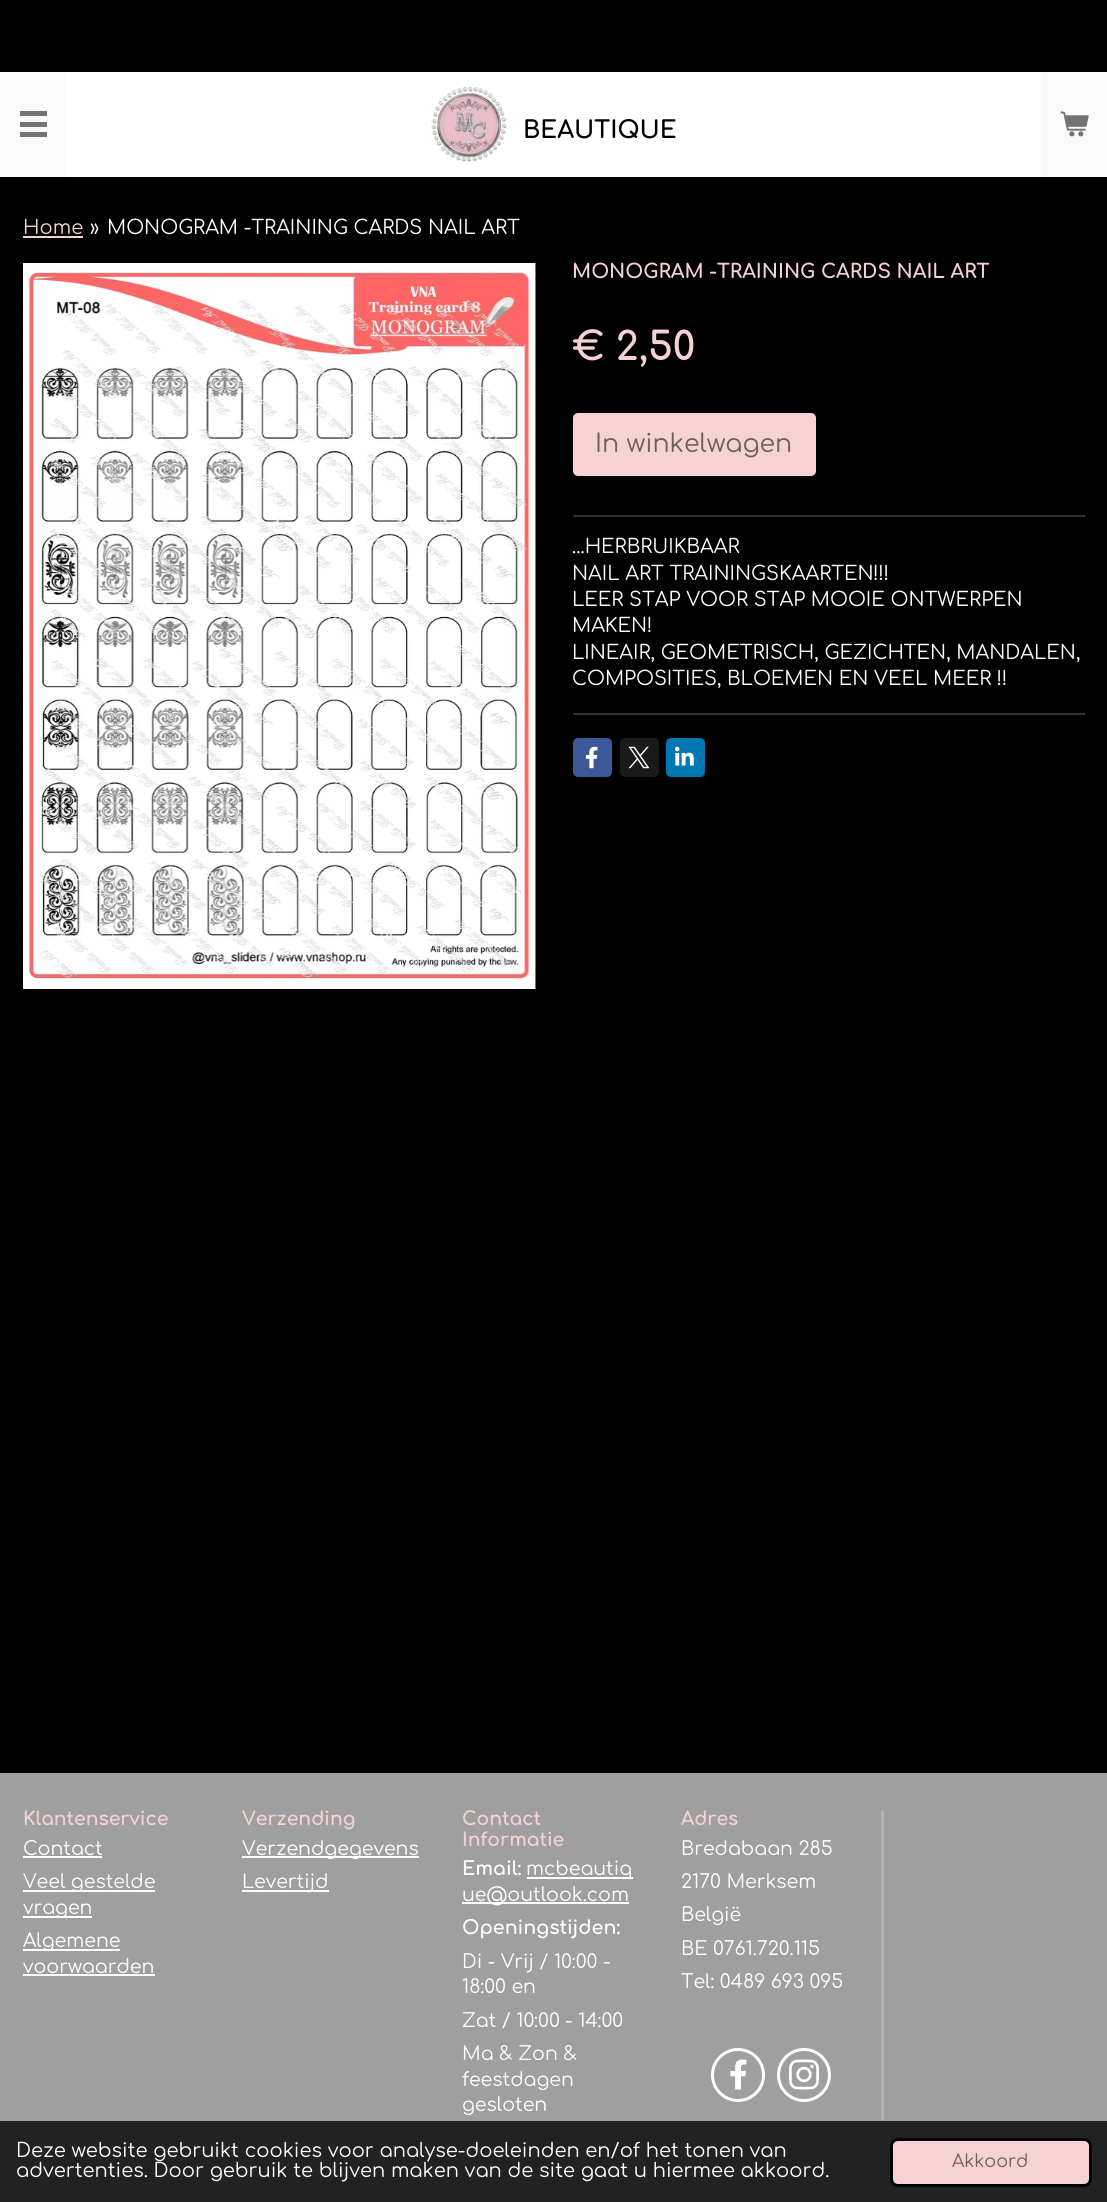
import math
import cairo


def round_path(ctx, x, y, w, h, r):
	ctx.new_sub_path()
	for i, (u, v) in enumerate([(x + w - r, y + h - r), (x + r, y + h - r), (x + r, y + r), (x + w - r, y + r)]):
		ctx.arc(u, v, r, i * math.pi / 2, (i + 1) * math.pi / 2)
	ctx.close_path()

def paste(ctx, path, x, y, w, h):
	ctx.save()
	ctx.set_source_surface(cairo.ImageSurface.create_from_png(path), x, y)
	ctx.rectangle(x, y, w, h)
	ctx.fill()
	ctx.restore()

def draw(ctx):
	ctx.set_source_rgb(1, 1, 1)
	ctx.paint()
	ctx.set_source_rgb(0, 0, 0)
	ctx.rectangle(0, 0, 1107, 72)
	ctx.fill()
	ctx.set_source_rgb(0.98, 0.98, 0.98)
	ctx.rectangle(0, 72, 66, 105)
	ctx.fill()
	ctx.set_source_rgb(0.451, 0.451, 0.451)
	ctx.rectangle(20, 122, 27, 5)
	ctx.rectangle(20, 111, 27, 5)
	ctx.rectangle(20, 132, 27, 5)
	ctx.fill()
	paste(ctx, 'media/1.png', 431, 87, 76, 75)
	ctx.select_font_face('Comfortaa', cairo.FONT_SLANT_NORMAL, cairo.FONT_WEIGHT_BOLD)
	ctx.set_font_size(24)
	ctx.set_source_rgb(0, 0, 0)
	ctx.move_to(523, 138)
	ctx.show_text('BEAUTIQUE')
	ctx.set_source_rgb(0.98, 0.98, 0.98)
	ctx.rectangle(1041, 72, 66, 105)
	ctx.fill()
	paste(ctx, 'media/2.png', 1060, 111, 29, 26)
	ctx.set_source_rgb(0, 0, 0)
	ctx.rectangle(0, 177, 1107, 1596)
	ctx.fill()
	ctx.select_font_face('Comfortaa')
	ctx.set_font_size(19.5)
	ctx.set_source_rgb(0.965, 0.824, 0.824)
	ctx.move_to(23, 234)
	ctx.show_text('Home')
	ctx.rectangle(23, 236, 60, 2)
	ctx.fill()
	ctx.set_source_rgb(1, 1, 1)
	ctx.move_to(90, 234)
	ctx.show_text('»')
	ctx.move_to(107, 234)
	ctx.show_text('MONOGRAM -TRAINING CARDS NAIL ART')
	paste(ctx, 'media/3.png', 23, 263, 513, 726)
	ctx.select_font_face('Comfortaa', cairo.FONT_SLANT_NORMAL, cairo.FONT_WEIGHT_BOLD)
	ctx.set_source_rgb(0.965, 0.824, 0.824)
	ctx.move_to(572, 278)
	ctx.show_text('MONOGRAM -TRAINING CARDS NAIL ART')
	ctx.set_font_size(39)
	ctx.move_to(572, 360)
	ctx.show_text('€ 2,50')
	round_path(ctx, 573, 413, 243, 63, 5)
	ctx.fill()
	ctx.select_font_face('Comfortaa')
	ctx.set_font_size(25.25)
	ctx.set_source_rgb(0.435, 0.369, 0.369)
	ctx.move_to(595, 452)
	ctx.show_text('In winkelwagen')
	ctx.set_source_rgb(0.2, 0.2, 0.2)
	ctx.rectangle(573, 515, 512, 2)
	ctx.fill()
	ctx.set_font_size(19.5)
	ctx.set_source_rgb(1, 1, 1)
	for x, y, s in [
		(572, 553, '...HERBRUIKBAAR'),
		(572, 580, 'NAIL ART TRAININGSKAARTEN!!!'),
		(572, 606, 'LEER STAP VOOR STAP MOOIE ONTWERPEN'),
		(572, 632, 'MAKEN!'),
		(572, 659, 'LINEAIR, GEOMETRISCH, GEZICHTEN, MANDALEN,'),
		(572, 685, 'COMPOSITIES, BLOEMEN EN VEEL MEER !!'),
	]:
		ctx.move_to(x, y)
		ctx.show_text(s)
	ctx.set_source_rgb(0.2, 0.2, 0.2)
	ctx.rectangle(573, 713, 512, 2)
	ctx.fill()
	ctx.set_source_rgb(0.231, 0.349, 0.596)
	round_path(ctx, 573, 738, 39, 39, 5)
	ctx.fill()
	paste(ctx, 'media/4.png', 585, 746, 13, 23)
	ctx.set_source_rgb(0.102, 0.102, 0.102)
	round_path(ctx, 620, 738, 39, 39, 5)
	ctx.fill()
	paste(ctx, 'media/5.png', 628, 746, 22, 23)
	ctx.set_source_rgb(0, 0.467, 0.71)
	round_path(ctx, 666, 738, 39, 39, 5)
	ctx.fill()
	paste(ctx, 'media/6.png', 675, 746, 19, 20)
	ctx.set_source_rgb(0.624, 0.624, 0.624)
	ctx.rectangle(0, 1773, 1107, 348)
	ctx.fill()
	ctx.select_font_face('Comfortaa', cairo.FONT_SLANT_NORMAL, cairo.FONT_WEIGHT_BOLD)
	ctx.set_font_size(18.75)
	ctx.set_source_rgb(0.965, 0.824, 0.824)
	ctx.move_to(23, 1825)
	ctx.show_text('Klantenservice')
	ctx.select_font_face('Comfortaa')
	ctx.set_font_size(19)
	ctx.set_source_rgb(1, 1, 1)
	ctx.move_to(23, 1855)
	ctx.show_text('Contact')
	ctx.rectangle(23, 1856, 79, 2)
	ctx.fill()
	ctx.rectangle(23, 1890, 132, 2)
	ctx.fill()
	ctx.move_to(23, 1888)
	ctx.show_text('Veel gestelde')
	ctx.rectangle(23, 1916, 69, 2)
	ctx.fill()
	ctx.move_to(23, 1914)
	ctx.show_text('vragen')
	ctx.rectangle(23, 1949, 97, 2)
	ctx.fill()
	ctx.move_to(23, 1947)
	ctx.show_text('Algemene')
	ctx.move_to(23, 1973)
	ctx.show_text('voorwaarden')
	ctx.rectangle(23, 1974, 132, 2)
	ctx.fill()
	ctx.select_font_face('Comfortaa', cairo.FONT_SLANT_NORMAL, cairo.FONT_WEIGHT_BOLD)
	ctx.set_font_size(18.75)
	ctx.set_source_rgb(0.965, 0.824, 0.824)
	ctx.move_to(242, 1825)
	ctx.show_text('Verzending')
	ctx.set_source_rgb(1, 1, 1)
	ctx.rectangle(242, 1856, 177, 2)
	ctx.fill()
	ctx.select_font_face('Comfortaa')
	ctx.set_font_size(19)
	ctx.move_to(242, 1855)
	ctx.show_text('Verzendgegevens')
	ctx.rectangle(242, 1890, 87, 2)
	ctx.fill()
	ctx.move_to(242, 1888)
	ctx.show_text('Levertijd')
	ctx.select_font_face('Comfortaa', cairo.FONT_SLANT_NORMAL, cairo.FONT_WEIGHT_BOLD)
	ctx.set_font_size(18.75)
	ctx.set_source_rgb(0.965, 0.824, 0.824)
	ctx.move_to(462, 1825)
	ctx.show_text('Contact')
	ctx.move_to(462, 1846)
	ctx.show_text('Informatie')
	ctx.set_font_size(19)
	ctx.set_source_rgb(1, 1, 1)
	ctx.move_to(462, 1875)
	ctx.show_text('Email:')
	ctx.rectangle(527, 1877, 106, 2)
	ctx.fill()
	ctx.select_font_face('Comfortaa')
	ctx.move_to(526, 1875)
	ctx.show_text('mcbeautiq')
	ctx.rectangle(462, 1902, 167, 2)
	ctx.fill()
	ctx.move_to(462, 1901)
	ctx.show_text('ue@outlook.com')
	ctx.select_font_face('Comfortaa', cairo.FONT_SLANT_NORMAL, cairo.FONT_WEIGHT_BOLD)
	ctx.move_to(462, 1934)
	ctx.show_text('Openingstijden:')
	ctx.select_font_face('Comfortaa')
	for x, y, s in [
		(462, 1968, 'Di - Vrij / 10:00 -'),
		(462, 1993, '18:00 en'),
		(462, 2027, 'Zat / 10:00 - 14:00'),
		(462, 2060, 'Ma & Zon &'),
		(462, 2086, 'feestdagen'),
		(462, 2111, 'gesloten'),
	]:
		ctx.move_to(x, y)
		ctx.show_text(s)
	ctx.set_source_rgb(0.698, 0.698, 0.698)
	ctx.rectangle(881, 1811, 3, 309)
	ctx.fill()
	ctx.select_font_face('Comfortaa', cairo.FONT_SLANT_NORMAL, cairo.FONT_WEIGHT_BOLD)
	ctx.set_font_size(18.75)
	ctx.set_source_rgb(0.965, 0.824, 0.824)
	ctx.move_to(681, 1825)
	ctx.show_text('Adres')
	ctx.select_font_face('Comfortaa')
	ctx.set_font_size(19)
	ctx.set_source_rgb(1, 1, 1)
	for x, y, s in [
		(681, 1855, 'Bredabaan 285'),
		(681, 1888, '2170 Merksem'),
		(681, 1921, 'België'),
		(681, 1955, 'BE 0761.720.115'),
		(681, 1988, 'Tel: 0489 693 095'),
	]:
		ctx.move_to(x, y)
		ctx.show_text(s)
	ctx.new_path()
	ctx.arc(738, 2075, 25.5, 0, 2 * math.pi)
	ctx.set_line_width(3)
	ctx.stroke()
	paste(ctx, 'media/7.png', 730, 2059, 17, 31)
	ctx.arc(804, 2075, 25.5, 0, 2 * math.pi)
	ctx.stroke()
	paste(ctx, 'media/8.png', 789, 2059, 30, 31)
	ctx.set_source_rgb(0.133, 0.133, 0.133)
	ctx.rectangle(0, 2121, 1107, 81)
	ctx.fill()
	ctx.set_font_size(19.5)
	ctx.set_source_rgb(1, 1, 1)
	ctx.move_to(16, 2157)
	ctx.show_text('Deze website gebruikt cookies voor analyse-doeleinden en/of het tonen van')
	ctx.move_to(16, 2177)
	ctx.show_text('advertenties. Door gebruik te blijven maken van de site gaat u hiermee akkoord.')
	ctx.set_source_rgb(0.965, 0.824, 0.824)
	round_path(ctx, 891.5, 2139.5, 199, 46, 6.5)
	ctx.fill_preserve()
	ctx.set_source_rgb(0, 0, 0)
	ctx.stroke()
	ctx.set_font_size(17.5)
	ctx.set_source_rgb(0.435, 0.369, 0.369)
	ctx.move_to(952, 2167)
	ctx.show_text('Akkoord')


surface = cairo.ImageSurface(cairo.FORMAT_RGB24, 1107, 2202)
ctx = cairo.Context(surface)
options = cairo.FontOptions()
options.set_hint_metrics(cairo.HINT_METRICS_OFF)
options.set_hint_style(cairo.HINT_STYLE_NONE)
ctx.set_font_options(options)
ctx.set_miter_limit(4)
draw(ctx)
surface.write_to_png('image.png')
